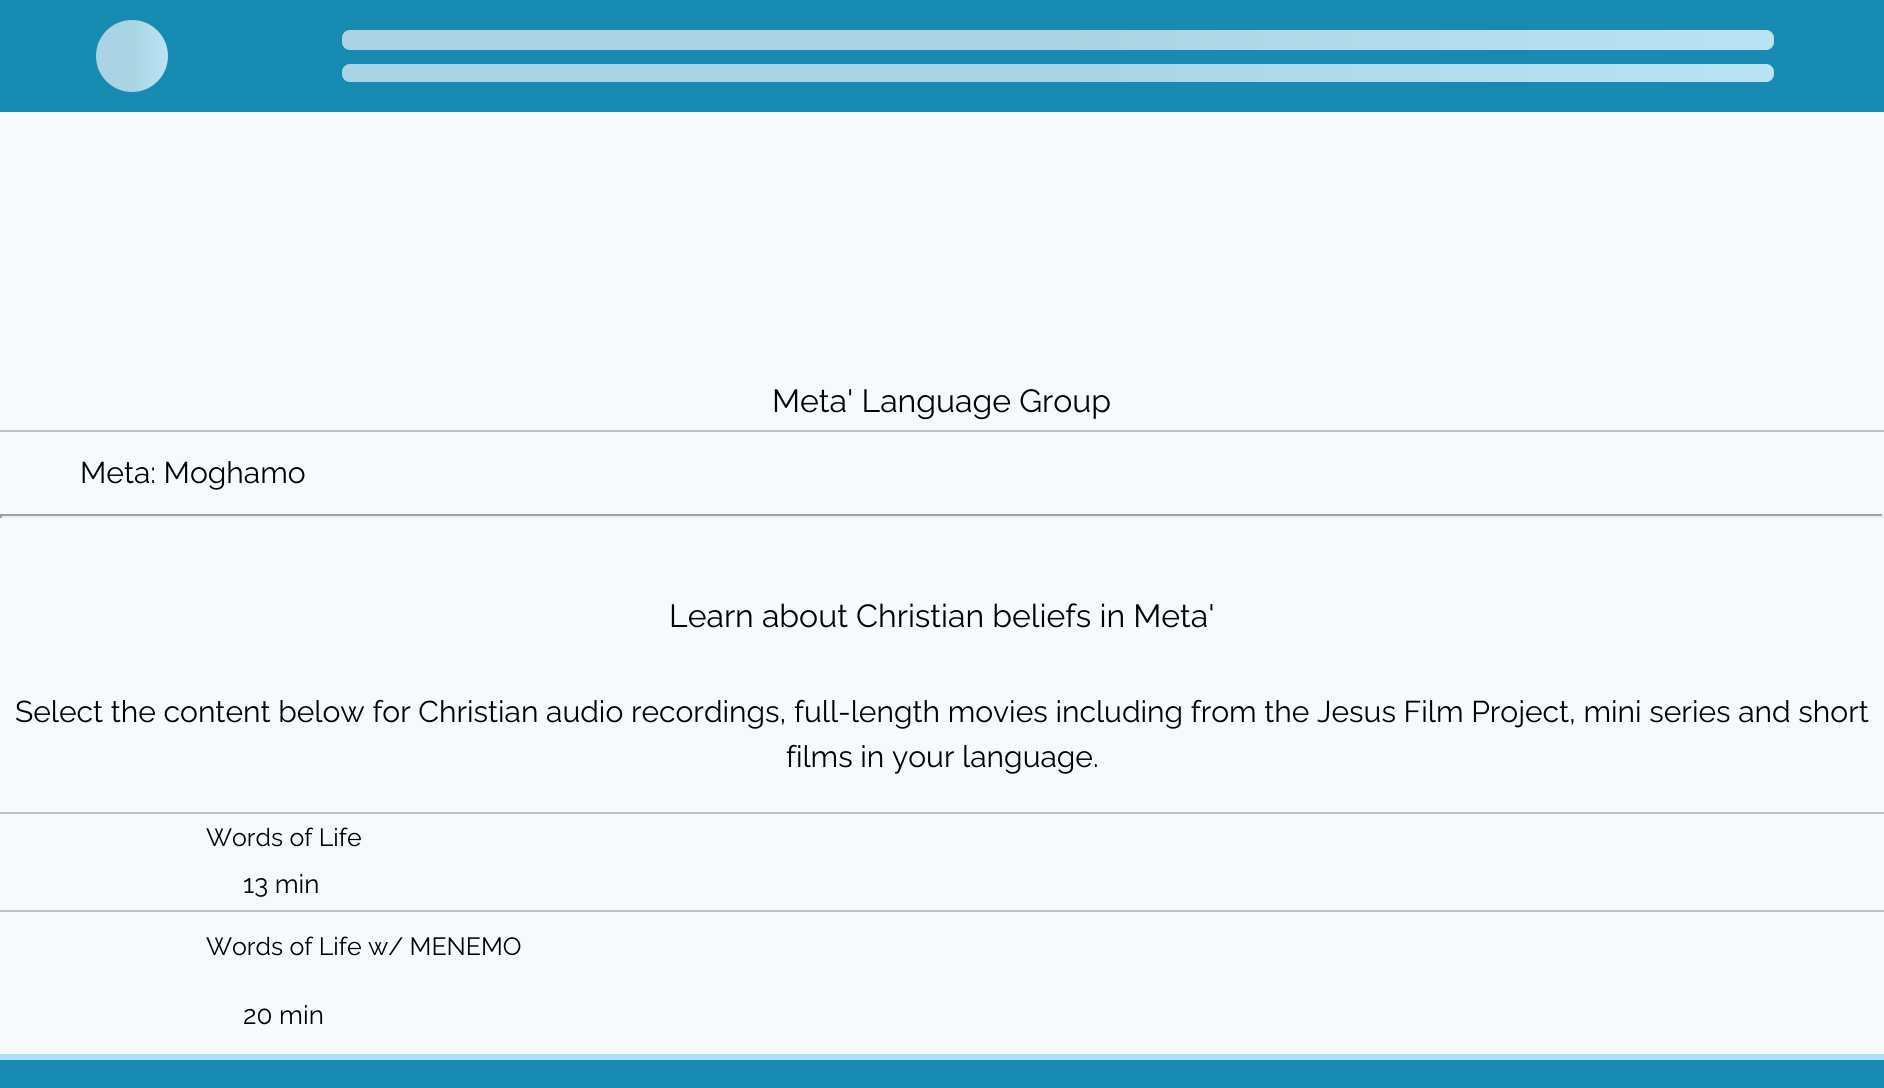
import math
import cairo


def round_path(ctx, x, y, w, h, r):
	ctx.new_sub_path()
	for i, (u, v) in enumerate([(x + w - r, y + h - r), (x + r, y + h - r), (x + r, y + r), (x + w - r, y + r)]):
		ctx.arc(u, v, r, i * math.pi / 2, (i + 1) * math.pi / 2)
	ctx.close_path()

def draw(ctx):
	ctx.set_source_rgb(0.961, 0.98, 0.992)
	ctx.paint()
	ctx.set_source_rgb(0.09, 0.545, 0.698)
	ctx.rectangle(0, 0, 1884, 112)
	ctx.fill()
	gradient = cairo.LinearGradient(96, 56, 240, 56)
	gradient.add_color_stop_rgba(0.25, 0.667, 0.831, 0.89, 1)
	gradient.add_color_stop_rgba(0.5, 0.729, 0.894, 0.953, 1)
	gradient.add_color_stop_rgba(0.75, 0.667, 0.831, 0.89, 1)
	ctx.set_source(gradient)
	ctx.arc(132, 56, 36, 0, 2 * math.pi)
	ctx.fill()
	gradient = cairo.LinearGradient(342, 40, 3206, 40)
	gradient.add_color_stop_rgba(0.25, 0.667, 0.831, 0.89, 1)
	gradient.add_color_stop_rgba(0.5, 0.729, 0.894, 0.953, 1)
	gradient.add_color_stop_rgba(0.75, 0.667, 0.831, 0.89, 1)
	ctx.set_source(gradient)
	round_path(ctx, 342, 30, 1432, 20, 8)
	ctx.fill()
	gradient = cairo.LinearGradient(342, 73, 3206, 73)
	gradient.add_color_stop_rgba(0.25, 0.667, 0.831, 0.89, 1)
	gradient.add_color_stop_rgba(0.5, 0.729, 0.894, 0.953, 1)
	gradient.add_color_stop_rgba(0.75, 0.667, 0.831, 0.89, 1)
	ctx.set_source(gradient)
	round_path(ctx, 342, 64, 1432, 18, 8)
	ctx.fill()
	ctx.select_font_face('Raleway')
	ctx.set_font_size(32)
	ctx.set_source_rgb(0, 0, 0)
	ctx.move_to(772, 412)
	ctx.show_text('Meta\' Language Group')
	ctx.set_source_rgb(0.753, 0.753, 0.753)
	ctx.rectangle(0, 430, 1884, 2)
	ctx.fill()
	ctx.set_font_size(30)
	ctx.set_source_rgb(0, 0, 0)
	ctx.move_to(80, 483)
	ctx.show_text('Meta: Moghamo')
	ctx.set_source_rgb(0.624, 0.624, 0.624)
	ctx.rectangle(0, 514, 1884, 2)
	ctx.fill()
	ctx.set_source_rgb(0.933, 0.933, 0.933)
	ctx.rectangle(1882, 514, 2, 4)
	ctx.rectangle(0, 516, 1884, 2)
	ctx.fill()
	ctx.set_source_rgb(0.624, 0.624, 0.624)
	ctx.rectangle(0, 514, 2, 4)
	ctx.fill()
	ctx.set_font_size(32)
	ctx.set_source_rgb(0, 0, 0)
	ctx.move_to(669, 627)
	ctx.show_text('Learn about Christian beliefs in Meta\'')
	ctx.set_font_size(30)
	ctx.move_to(15, 722)
	ctx.show_text('Select the content below for Christian audio recordings, full-length movies including from the Jesus Film Project, mini series and short')
	ctx.move_to(786, 767)
	ctx.show_text('films in your language.')
	ctx.set_source_rgb(0.753, 0.753, 0.753)
	ctx.rectangle(0, 812, 1884, 2)
	ctx.fill()
	ctx.set_font_size(24.9)
	ctx.set_source_rgb(0, 0, 0)
	ctx.move_to(206, 846)
	ctx.show_text('Words of Life')
	ctx.set_font_size(26)
	ctx.move_to(243, 893)
	ctx.show_text('13 min')
	ctx.set_source_rgb(0.753, 0.753, 0.753)
	ctx.rectangle(0, 910, 1884, 2)
	ctx.fill()
	ctx.set_font_size(24.9)
	ctx.set_source_rgb(0, 0, 0)
	ctx.move_to(206, 955)
	ctx.show_text('Words of Life w/ MENEMO')
	ctx.set_font_size(26)
	ctx.move_to(243, 1024)
	ctx.show_text('20 min')
	ctx.set_source_rgb(0.675, 0.878, 0.973)
	ctx.rectangle(0, 1054, 1884, 6)
	ctx.fill()
	ctx.set_source_rgb(0.09, 0.545, 0.698)
	ctx.rectangle(0, 1060, 1884, 28)
	ctx.fill()


surface = cairo.ImageSurface(cairo.FORMAT_RGB24, 1884, 1088)
ctx = cairo.Context(surface)
options = cairo.FontOptions()
options.set_hint_metrics(cairo.HINT_METRICS_OFF)
options.set_hint_style(cairo.HINT_STYLE_NONE)
ctx.set_font_options(options)
ctx.set_miter_limit(4)
draw(ctx)
surface.write_to_png('image.png')
